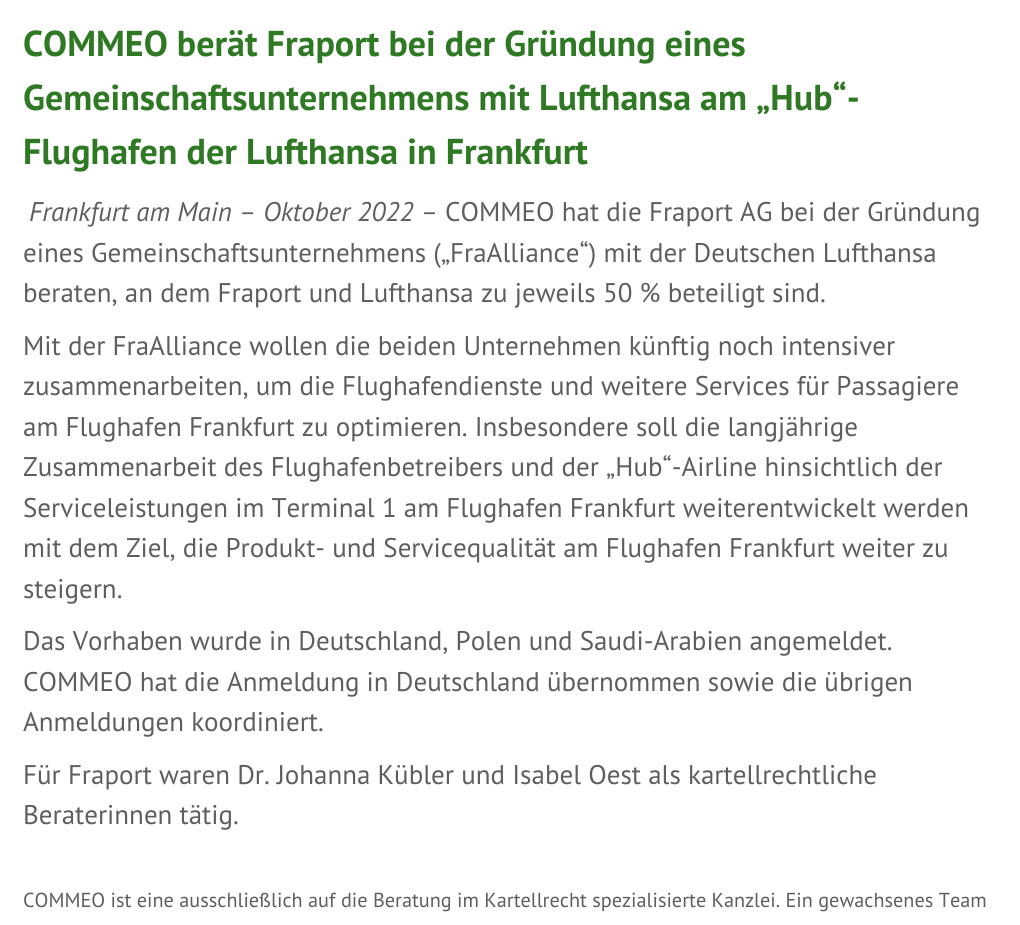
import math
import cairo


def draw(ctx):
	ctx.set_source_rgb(1, 1, 1)
	ctx.paint()
	ctx.select_font_face('PT Sans', cairo.FONT_SLANT_NORMAL, cairo.FONT_WEIGHT_BOLD)
	ctx.set_font_size(36)
	ctx.set_source_rgb(0.184, 0.475, 0.145)
	for x, y, s in [
		(23, 56, 'COMMEO berät Fraport bei der Gründung eines'),
		(23, 110, 'Gemeinschaftsunternehmens mit Lufthansa am „Hub“-'),
		(23, 164, 'Flughafen der Lufthansa in Frankfurt'),
	]:
		ctx.move_to(x, y)
		ctx.show_text(s)
	ctx.select_font_face('PT Sans', cairo.FONT_SLANT_ITALIC)
	ctx.set_font_size(27)
	ctx.set_source_rgb(0.369, 0.369, 0.369)
	ctx.move_to(29, 221)
	ctx.show_text('Frankfurt am Main – Oktober 2022 –')
	ctx.select_font_face('PT Sans')
	for x, y, s in [
		(445, 221, 'COMMEO hat die Fraport AG bei der Gründung'),
		(23, 262, 'eines Gemeinschaftsunternehmens („FraAlliance“) mit der Deutschen Lufthansa'),
		(23, 302, 'beraten, an dem Fraport und Lufthansa zu jeweils 50 % beteiligt sind.'),
		(23, 355, 'Mit der FraAlliance wollen die beiden Unternehmen künftig noch intensiver'),
		(23, 395, 'zusammenarbeiten, um die Flughafendienste und weitere Services für Passagiere'),
		(23, 436, 'am Flughafen Frankfurt zu optimieren. Insbesondere soll die langjährige'),
		(23, 476, 'Zusammenarbeit des Flughafenbetreibers und der „Hub“-Airline hinsichtlich der'),
		(23, 517, 'Serviceleistungen im Terminal 1 am Flughafen Frankfurt weiterentwickelt werden'),
		(23, 557, 'mit dem Ziel, die Produkt- und Servicequalität am Flughafen Frankfurt weiter zu'),
		(23, 598, 'steigern.'),
		(23, 650, 'Das Vorhaben wurde in Deutschland, Polen und Saudi-Arabien angemeldet.'),
		(23, 691, 'COMMEO hat die Anmeldung in Deutschland übernommen sowie die übrigen'),
		(23, 731, 'Anmeldungen koordiniert.'),
		(23, 784, 'Für Fraport waren Dr. Johanna Kübler und Isabel Oest als kartellrechtliche'),
		(23, 824, 'Beraterinnen tätig.'),
	]:
		ctx.move_to(x, y)
		ctx.show_text(s)
	ctx.set_font_size(20.25)
	ctx.move_to(23, 907)
	ctx.show_text('COMMEO ist eine ausschließlich auf die Beratung im Kartellrecht spezialisierte Kanzlei. Ein gewachsenes Team')


surface = cairo.ImageSurface(cairo.FORMAT_RGB24, 1020, 925)
ctx = cairo.Context(surface)
options = cairo.FontOptions()
options.set_hint_metrics(cairo.HINT_METRICS_OFF)
options.set_hint_style(cairo.HINT_STYLE_NONE)
ctx.set_font_options(options)
ctx.set_miter_limit(4)
draw(ctx)
surface.write_to_png('image.png')
